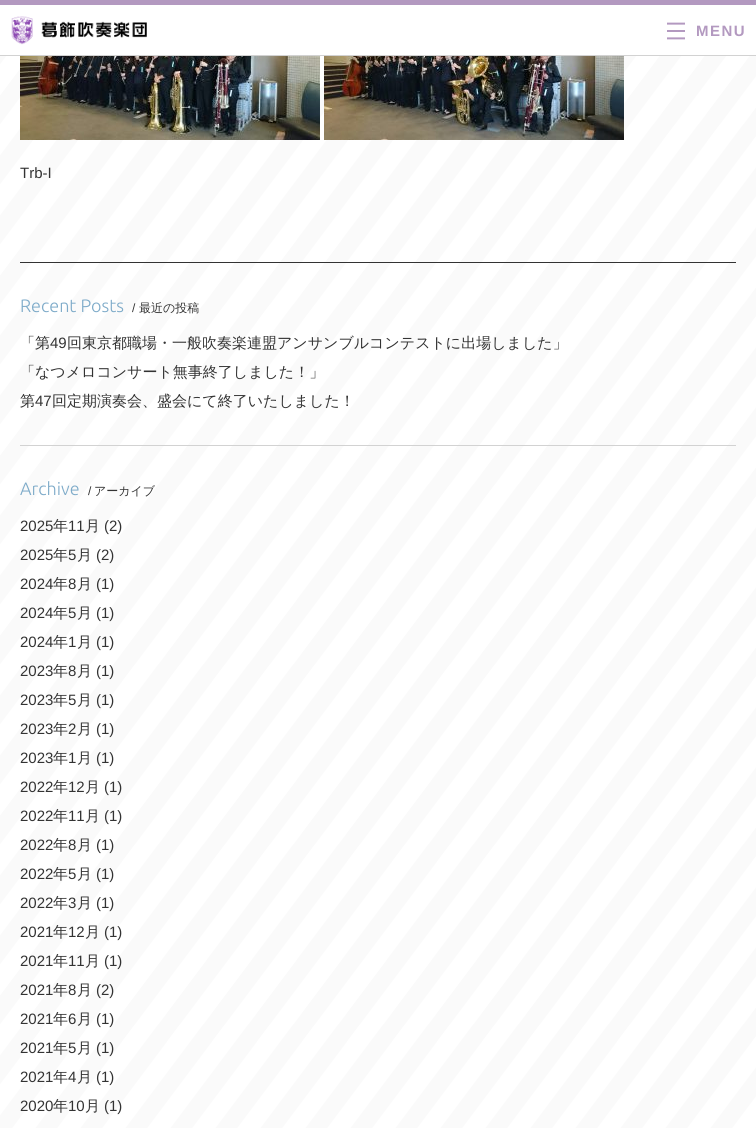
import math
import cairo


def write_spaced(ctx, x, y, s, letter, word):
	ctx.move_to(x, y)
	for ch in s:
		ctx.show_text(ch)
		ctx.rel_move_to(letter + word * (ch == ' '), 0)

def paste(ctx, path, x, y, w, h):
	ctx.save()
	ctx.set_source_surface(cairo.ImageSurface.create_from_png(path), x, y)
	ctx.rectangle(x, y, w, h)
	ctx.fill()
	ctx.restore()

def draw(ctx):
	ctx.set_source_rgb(1, 1, 1)
	ctx.paint()
	ctx.set_source_rgb(0.702, 0.6, 0.753)
	ctx.rectangle(0, 0, 756, 5)
	ctx.fill()
	ctx.set_source_rgb(0.824, 0.824, 0.824)
	ctx.rectangle(0, 55, 756, 1)
	ctx.fill()
	paste(ctx, 'media/1.png', 11, 16, 136, 29)
	paste(ctx, 'media/2.png', 667, 22, 18, 18)
	ctx.select_font_face('Liberation Sans', cairo.FONT_SLANT_NORMAL, cairo.FONT_WEIGHT_BOLD)
	ctx.set_font_size(15)
	ctx.set_source_rgb(0.702, 0.6, 0.753)
	write_spaced(ctx, 696, 36, 'MENU', 1.5, 0)
	paste(ctx, 'media/3.png', 0, 56, 756, 1072)
	paste(ctx, 'media/4.png', 20, 56, 300, 84)
	paste(ctx, 'media/5.png', 324, 56, 300, 84)
	ctx.select_font_face('Liberation Sans')
	ctx.set_source_rgb(0.2, 0.2, 0.2)
	ctx.move_to(20, 178)
	ctx.show_text('Trb-I')
	ctx.rectangle(20, 262, 716, 1)
	ctx.fill()
	ctx.set_source_rgb(0.824, 0.824, 0.824)
	ctx.rectangle(20, 445, 716, 1)
	ctx.fill()
	ctx.select_font_face('Ubuntu Light')
	ctx.set_font_size(18)
	ctx.set_source_rgb(0.494, 0.671, 0.788)
	ctx.move_to(20, 312)
	ctx.show_text('Recent Posts')
	ctx.select_font_face('Liberation Sans')
	ctx.set_font_size(12)
	ctx.set_source_rgb(0.2, 0.2, 0.2)
	ctx.move_to(132, 312)
	ctx.show_text('/')
	ctx.select_font_face('WenQuanYi Zen Hei Medium')
	ctx.move_to(139, 312)
	ctx.show_text('最近の投稿')
	ctx.set_font_size(15)
	ctx.move_to(20, 348)
	ctx.show_text('「第')
	ctx.select_font_face('Liberation Sans')
	ctx.move_to(50, 348)
	ctx.show_text('49')
	ctx.select_font_face('WenQuanYi Zen Hei Medium')
	for x, y, s in [
		(67, 348, '回東京都職場・一般吹奏楽連盟アンサンブルコンテストに出場しました」'),
		(20, 377, '「なつメロコンサート無事終了しました！」'),
		(20, 406, '第'),
	]:
		ctx.move_to(x, y)
		ctx.show_text(s)
	ctx.select_font_face('Liberation Sans')
	ctx.move_to(35, 406)
	ctx.show_text('47')
	ctx.select_font_face('WenQuanYi Zen Hei Medium')
	ctx.move_to(52, 406)
	ctx.show_text('回定期演奏会、盛会にて終了いたしました！')
	ctx.select_font_face('Ubuntu Light')
	ctx.set_font_size(18)
	ctx.set_source_rgb(0.494, 0.671, 0.788)
	ctx.move_to(20, 495)
	ctx.show_text('Archive')
	ctx.select_font_face('Liberation Sans')
	ctx.set_font_size(12)
	ctx.set_source_rgb(0.2, 0.2, 0.2)
	ctx.move_to(88, 495)
	ctx.show_text('/')
	ctx.select_font_face('WenQuanYi Zen Hei Medium')
	ctx.move_to(94, 495)
	ctx.show_text('アーカイブ')
	ctx.select_font_face('Liberation Sans')
	ctx.set_font_size(15)
	ctx.move_to(20, 531)
	ctx.show_text('2025')
	ctx.select_font_face('WenQuanYi Zen Hei Medium')
	ctx.move_to(53, 531)
	ctx.show_text('年')
	ctx.select_font_face('Liberation Sans')
	ctx.move_to(68, 531)
	ctx.show_text('11')
	ctx.select_font_face('WenQuanYi Zen Hei Medium')
	ctx.move_to(85, 531)
	ctx.show_text('月')
	ctx.select_font_face('Liberation Sans')
	ctx.move_to(104, 531)
	ctx.show_text('(2)')
	ctx.move_to(20, 560)
	ctx.show_text('2025')
	ctx.select_font_face('WenQuanYi Zen Hei Medium')
	ctx.move_to(53, 560)
	ctx.show_text('年')
	ctx.select_font_face('Liberation Sans')
	ctx.move_to(68, 560)
	ctx.show_text('5')
	ctx.select_font_face('WenQuanYi Zen Hei Medium')
	ctx.move_to(77, 560)
	ctx.show_text('月')
	ctx.select_font_face('Liberation Sans')
	ctx.move_to(96, 560)
	ctx.show_text('(2)')
	ctx.move_to(20, 589)
	ctx.show_text('2024')
	ctx.select_font_face('WenQuanYi Zen Hei Medium')
	ctx.move_to(53, 589)
	ctx.show_text('年')
	ctx.select_font_face('Liberation Sans')
	ctx.move_to(68, 589)
	ctx.show_text('8')
	ctx.select_font_face('WenQuanYi Zen Hei Medium')
	ctx.move_to(77, 589)
	ctx.show_text('月')
	ctx.select_font_face('Liberation Sans')
	ctx.move_to(96, 589)
	ctx.show_text('(1)')
	ctx.move_to(20, 618)
	ctx.show_text('2024')
	ctx.select_font_face('WenQuanYi Zen Hei Medium')
	ctx.move_to(53, 618)
	ctx.show_text('年')
	ctx.select_font_face('Liberation Sans')
	ctx.move_to(68, 618)
	ctx.show_text('5')
	ctx.select_font_face('WenQuanYi Zen Hei Medium')
	ctx.move_to(77, 618)
	ctx.show_text('月')
	ctx.select_font_face('Liberation Sans')
	ctx.move_to(96, 618)
	ctx.show_text('(1)')
	ctx.move_to(20, 647)
	ctx.show_text('2024')
	ctx.select_font_face('WenQuanYi Zen Hei Medium')
	ctx.move_to(53, 647)
	ctx.show_text('年')
	ctx.select_font_face('Liberation Sans')
	ctx.move_to(68, 647)
	ctx.show_text('1')
	ctx.select_font_face('WenQuanYi Zen Hei Medium')
	ctx.move_to(77, 647)
	ctx.show_text('月')
	ctx.select_font_face('Liberation Sans')
	ctx.move_to(96, 647)
	ctx.show_text('(1)')
	ctx.move_to(20, 676)
	ctx.show_text('2023')
	ctx.select_font_face('WenQuanYi Zen Hei Medium')
	ctx.move_to(53, 676)
	ctx.show_text('年')
	ctx.select_font_face('Liberation Sans')
	ctx.move_to(68, 676)
	ctx.show_text('8')
	ctx.select_font_face('WenQuanYi Zen Hei Medium')
	ctx.move_to(77, 676)
	ctx.show_text('月')
	ctx.select_font_face('Liberation Sans')
	ctx.move_to(96, 676)
	ctx.show_text('(1)')
	ctx.move_to(20, 705)
	ctx.show_text('2023')
	ctx.select_font_face('WenQuanYi Zen Hei Medium')
	ctx.move_to(53, 705)
	ctx.show_text('年')
	ctx.select_font_face('Liberation Sans')
	ctx.move_to(68, 705)
	ctx.show_text('5')
	ctx.select_font_face('WenQuanYi Zen Hei Medium')
	ctx.move_to(77, 705)
	ctx.show_text('月')
	ctx.select_font_face('Liberation Sans')
	ctx.move_to(96, 705)
	ctx.show_text('(1)')
	ctx.move_to(20, 734)
	ctx.show_text('2023')
	ctx.select_font_face('WenQuanYi Zen Hei Medium')
	ctx.move_to(53, 734)
	ctx.show_text('年')
	ctx.select_font_face('Liberation Sans')
	ctx.move_to(68, 734)
	ctx.show_text('2')
	ctx.select_font_face('WenQuanYi Zen Hei Medium')
	ctx.move_to(77, 734)
	ctx.show_text('月')
	ctx.select_font_face('Liberation Sans')
	ctx.move_to(96, 734)
	ctx.show_text('(1)')
	ctx.move_to(20, 763)
	ctx.show_text('2023')
	ctx.select_font_face('WenQuanYi Zen Hei Medium')
	ctx.move_to(53, 763)
	ctx.show_text('年')
	ctx.select_font_face('Liberation Sans')
	ctx.move_to(68, 763)
	ctx.show_text('1')
	ctx.select_font_face('WenQuanYi Zen Hei Medium')
	ctx.move_to(77, 763)
	ctx.show_text('月')
	ctx.select_font_face('Liberation Sans')
	ctx.move_to(96, 763)
	ctx.show_text('(1)')
	ctx.move_to(20, 792)
	ctx.show_text('2022')
	ctx.select_font_face('WenQuanYi Zen Hei Medium')
	ctx.move_to(53, 792)
	ctx.show_text('年')
	ctx.select_font_face('Liberation Sans')
	ctx.move_to(68, 792)
	ctx.show_text('12')
	ctx.select_font_face('WenQuanYi Zen Hei Medium')
	ctx.move_to(85, 792)
	ctx.show_text('月')
	ctx.select_font_face('Liberation Sans')
	ctx.move_to(104, 792)
	ctx.show_text('(1)')
	ctx.move_to(20, 821)
	ctx.show_text('2022')
	ctx.select_font_face('WenQuanYi Zen Hei Medium')
	ctx.move_to(53, 821)
	ctx.show_text('年')
	ctx.select_font_face('Liberation Sans')
	ctx.move_to(68, 821)
	ctx.show_text('11')
	ctx.select_font_face('WenQuanYi Zen Hei Medium')
	ctx.move_to(85, 821)
	ctx.show_text('月')
	ctx.select_font_face('Liberation Sans')
	ctx.move_to(104, 821)
	ctx.show_text('(1)')
	ctx.move_to(20, 850)
	ctx.show_text('2022')
	ctx.select_font_face('WenQuanYi Zen Hei Medium')
	ctx.move_to(53, 850)
	ctx.show_text('年')
	ctx.select_font_face('Liberation Sans')
	ctx.move_to(68, 850)
	ctx.show_text('8')
	ctx.select_font_face('WenQuanYi Zen Hei Medium')
	ctx.move_to(77, 850)
	ctx.show_text('月')
	ctx.select_font_face('Liberation Sans')
	ctx.move_to(96, 850)
	ctx.show_text('(1)')
	ctx.move_to(20, 879)
	ctx.show_text('2022')
	ctx.select_font_face('WenQuanYi Zen Hei Medium')
	ctx.move_to(53, 879)
	ctx.show_text('年')
	ctx.select_font_face('Liberation Sans')
	ctx.move_to(68, 879)
	ctx.show_text('5')
	ctx.select_font_face('WenQuanYi Zen Hei Medium')
	ctx.move_to(77, 879)
	ctx.show_text('月')
	ctx.select_font_face('Liberation Sans')
	ctx.move_to(96, 879)
	ctx.show_text('(1)')
	ctx.move_to(20, 908)
	ctx.show_text('2022')
	ctx.select_font_face('WenQuanYi Zen Hei Medium')
	ctx.move_to(53, 908)
	ctx.show_text('年')
	ctx.select_font_face('Liberation Sans')
	ctx.move_to(68, 908)
	ctx.show_text('3')
	ctx.select_font_face('WenQuanYi Zen Hei Medium')
	ctx.move_to(77, 908)
	ctx.show_text('月')
	ctx.select_font_face('Liberation Sans')
	ctx.move_to(96, 908)
	ctx.show_text('(1)')
	ctx.move_to(20, 937)
	ctx.show_text('2021')
	ctx.select_font_face('WenQuanYi Zen Hei Medium')
	ctx.move_to(53, 937)
	ctx.show_text('年')
	ctx.select_font_face('Liberation Sans')
	ctx.move_to(68, 937)
	ctx.show_text('12')
	ctx.select_font_face('WenQuanYi Zen Hei Medium')
	ctx.move_to(85, 937)
	ctx.show_text('月')
	ctx.select_font_face('Liberation Sans')
	ctx.move_to(104, 937)
	ctx.show_text('(1)')
	ctx.move_to(20, 966)
	ctx.show_text('2021')
	ctx.select_font_face('WenQuanYi Zen Hei Medium')
	ctx.move_to(53, 966)
	ctx.show_text('年')
	ctx.select_font_face('Liberation Sans')
	ctx.move_to(68, 966)
	ctx.show_text('11')
	ctx.select_font_face('WenQuanYi Zen Hei Medium')
	ctx.move_to(85, 966)
	ctx.show_text('月')
	ctx.select_font_face('Liberation Sans')
	ctx.move_to(104, 966)
	ctx.show_text('(1)')
	ctx.move_to(20, 995)
	ctx.show_text('2021')
	ctx.select_font_face('WenQuanYi Zen Hei Medium')
	ctx.move_to(53, 995)
	ctx.show_text('年')
	ctx.select_font_face('Liberation Sans')
	ctx.move_to(68, 995)
	ctx.show_text('8')
	ctx.select_font_face('WenQuanYi Zen Hei Medium')
	ctx.move_to(77, 995)
	ctx.show_text('月')
	ctx.select_font_face('Liberation Sans')
	ctx.move_to(96, 995)
	ctx.show_text('(2)')
	ctx.move_to(20, 1024)
	ctx.show_text('2021')
	ctx.select_font_face('WenQuanYi Zen Hei Medium')
	ctx.move_to(53, 1024)
	ctx.show_text('年')
	ctx.select_font_face('Liberation Sans')
	ctx.move_to(68, 1024)
	ctx.show_text('6')
	ctx.select_font_face('WenQuanYi Zen Hei Medium')
	ctx.move_to(77, 1024)
	ctx.show_text('月')
	ctx.select_font_face('Liberation Sans')
	ctx.move_to(96, 1024)
	ctx.show_text('(1)')
	ctx.move_to(20, 1053)
	ctx.show_text('2021')
	ctx.select_font_face('WenQuanYi Zen Hei Medium')
	ctx.move_to(53, 1053)
	ctx.show_text('年')
	ctx.select_font_face('Liberation Sans')
	ctx.move_to(68, 1053)
	ctx.show_text('5')
	ctx.select_font_face('WenQuanYi Zen Hei Medium')
	ctx.move_to(77, 1053)
	ctx.show_text('月')
	ctx.select_font_face('Liberation Sans')
	ctx.move_to(96, 1053)
	ctx.show_text('(1)')
	ctx.move_to(20, 1082)
	ctx.show_text('2021')
	ctx.select_font_face('WenQuanYi Zen Hei Medium')
	ctx.move_to(53, 1082)
	ctx.show_text('年')
	ctx.select_font_face('Liberation Sans')
	ctx.move_to(68, 1082)
	ctx.show_text('4')
	ctx.select_font_face('WenQuanYi Zen Hei Medium')
	ctx.move_to(77, 1082)
	ctx.show_text('月')
	ctx.select_font_face('Liberation Sans')
	ctx.move_to(96, 1082)
	ctx.show_text('(1)')
	ctx.move_to(20, 1111)
	ctx.show_text('2020')
	ctx.select_font_face('WenQuanYi Zen Hei Medium')
	ctx.move_to(53, 1111)
	ctx.show_text('年')
	ctx.select_font_face('Liberation Sans')
	ctx.move_to(68, 1111)
	ctx.show_text('10')
	ctx.select_font_face('WenQuanYi Zen Hei Medium')
	ctx.move_to(85, 1111)
	ctx.show_text('月')
	ctx.select_font_face('Liberation Sans')
	ctx.move_to(104, 1111)
	ctx.show_text('(1)')


surface = cairo.ImageSurface(cairo.FORMAT_RGB24, 756, 1128)
ctx = cairo.Context(surface)
options = cairo.FontOptions()
options.set_hint_metrics(cairo.HINT_METRICS_OFF)
options.set_hint_style(cairo.HINT_STYLE_NONE)
ctx.set_font_options(options)
ctx.set_miter_limit(4)
draw(ctx)
surface.write_to_png('image.png')
